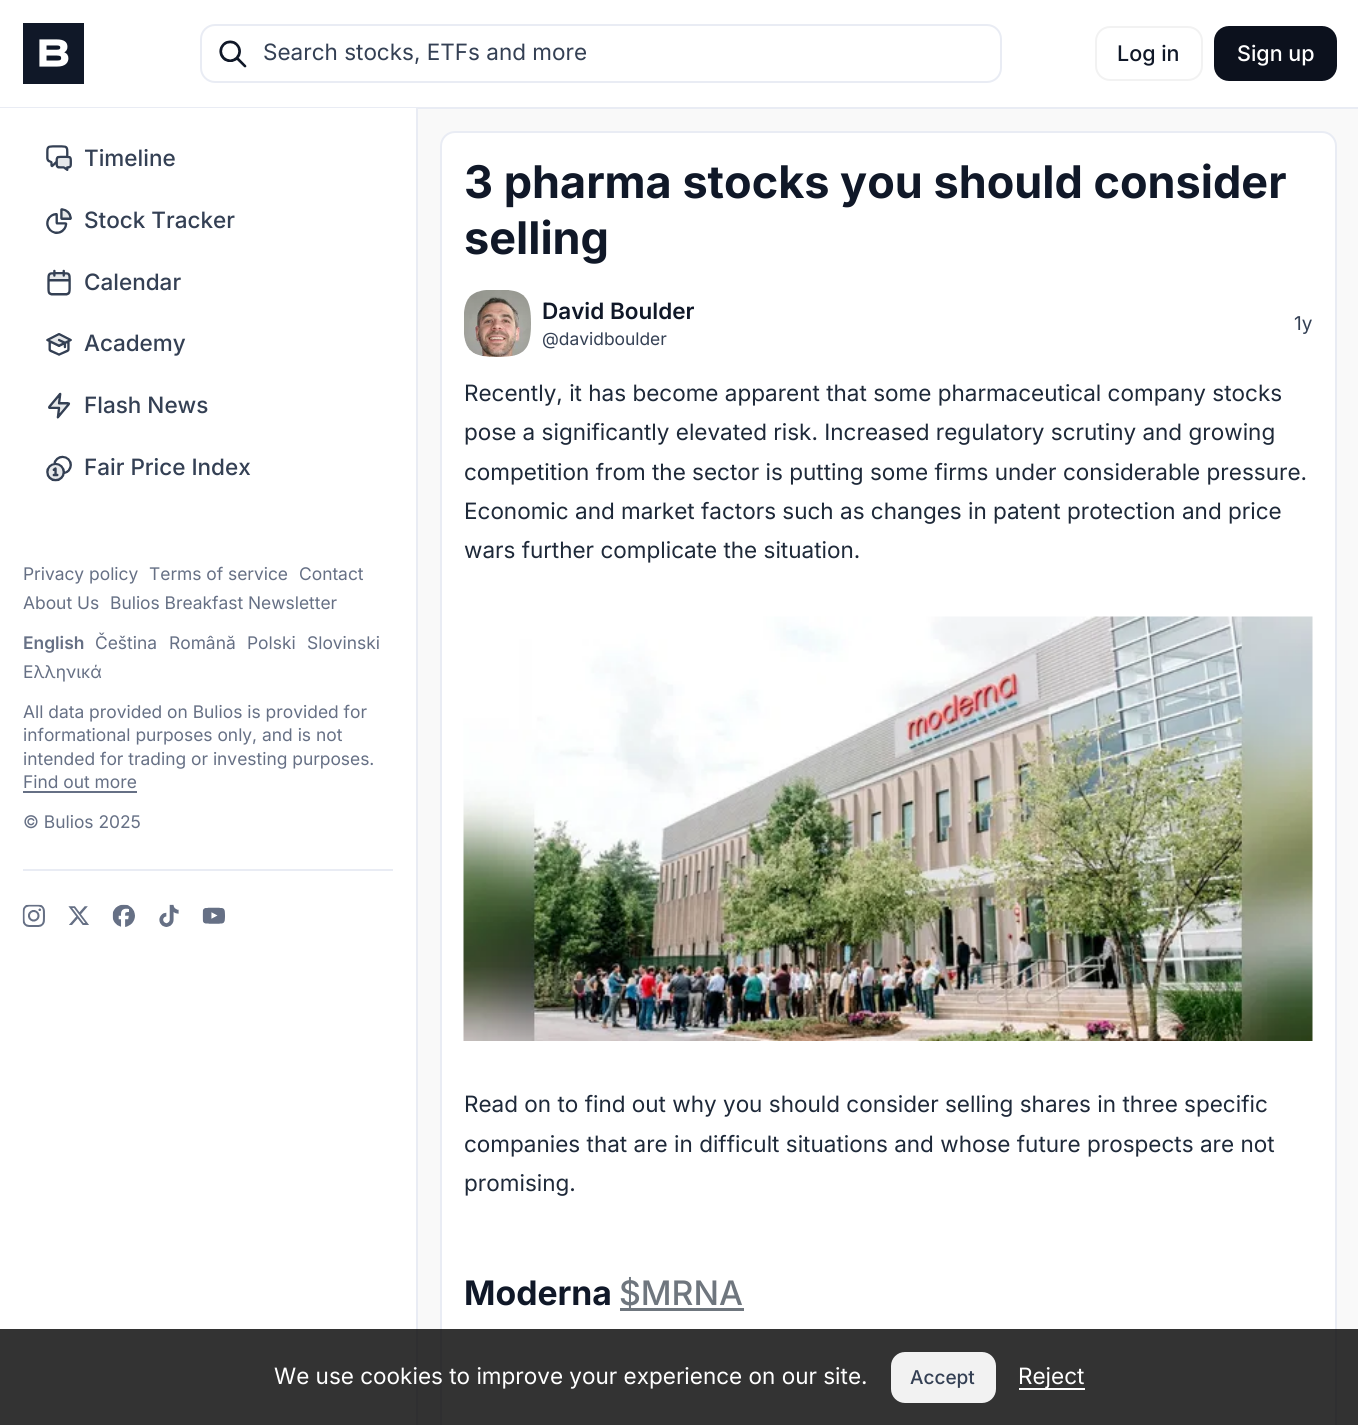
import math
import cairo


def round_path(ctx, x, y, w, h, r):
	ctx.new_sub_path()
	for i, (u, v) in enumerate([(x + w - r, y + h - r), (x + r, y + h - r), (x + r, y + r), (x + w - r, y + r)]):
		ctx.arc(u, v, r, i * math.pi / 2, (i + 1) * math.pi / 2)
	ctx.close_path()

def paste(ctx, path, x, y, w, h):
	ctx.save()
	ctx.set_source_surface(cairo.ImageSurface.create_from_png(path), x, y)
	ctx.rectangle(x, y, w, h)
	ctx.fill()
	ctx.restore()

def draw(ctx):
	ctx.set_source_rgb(0.976, 0.976, 0.976)
	ctx.paint()
	ctx.set_source_rgb(1, 1, 1)
	ctx.rectangle(0, 0, 1358, 107)
	ctx.fill()
	ctx.set_source_rgb(0.914, 0.925, 0.957)
	ctx.rectangle(0, 107, 1358, 2)
	ctx.fill()
	paste(ctx, 'media/1.png', 23, 23, 61, 61)
	round_path(ctx, 201, 25, 800, 57, 14)
	ctx.stroke()
	paste(ctx, 'media/2.png', 219, 40, 28, 28)
	ctx.select_font_face('Inter')
	ctx.set_font_size(22.5)
	ctx.set_source_rgb(0.204, 0.251, 0.329)
	ctx.move_to(263, 60)
	ctx.show_text('Search stocks, ETFs and more')
	round_path(ctx, 1096, 27, 106, 53, 14)
	ctx.set_source_rgb(0.949, 0.949, 0.949)
	ctx.stroke()
	ctx.select_font_face('Inter Medium')
	ctx.set_font_size(21.5)
	ctx.set_source_rgb(0.063, 0.094, 0.157)
	ctx.move_to(1117, 61)
	ctx.show_text('Log in')
	ctx.set_source_rgb(0.047, 0.067, 0.114)
	round_path(ctx, 1215, 27, 121, 53, 14)
	ctx.fill_preserve()
	ctx.stroke()
	ctx.set_source_rgb(1, 1, 1)
	ctx.move_to(1237, 61)
	ctx.show_text('Sign up')
	ctx.rectangle(0, 108, 416, 1317)
	ctx.fill()
	ctx.set_source_rgb(0.914, 0.925, 0.957)
	ctx.rectangle(416, 108, 2, 1317)
	ctx.fill()
	paste(ctx, 'media/3.png', 46, 145, 26, 26)
	ctx.set_font_size(22.5)
	ctx.set_source_rgb(0.204, 0.251, 0.329)
	ctx.move_to(84, 166)
	ctx.show_text('Timeline')
	paste(ctx, 'media/4.png', 46, 208, 26, 26)
	ctx.move_to(84, 228)
	ctx.show_text('Stock Tracker')
	paste(ctx, 'media/5.png', 47, 269, 24, 27)
	ctx.move_to(84, 290)
	ctx.show_text('Calendar')
	paste(ctx, 'media/6.png', 46, 333, 26, 23)
	ctx.move_to(84, 351)
	ctx.show_text('Academy')
	paste(ctx, 'media/7.png', 48, 392, 23, 27)
	ctx.move_to(84, 413)
	ctx.show_text('Flash News')
	paste(ctx, 'media/8.png', 46, 455, 26, 27)
	ctx.move_to(84, 475)
	ctx.show_text('Fair Price Index')
	ctx.select_font_face('Inter')
	ctx.set_font_size(17.4)
	ctx.set_source_rgb(0.4, 0.439, 0.522)
	for x, y, s in [
		(23, 580, 'Privacy policy'),
		(149, 580, 'Terms of service'),
		(299, 580, 'Contact'),
		(23, 609, 'About Us'),
		(110, 609, 'Bulios Breakfast Newsletter'),
	]:
		ctx.move_to(x, y)
		ctx.show_text(s)
	ctx.select_font_face('Inter SemiBold')
	ctx.move_to(23, 649)
	ctx.show_text('English')
	ctx.select_font_face('Inter')
	for x, y, s in [
		(95, 649, 'Čeština'),
		(169, 649, 'Română'),
		(247, 649, 'Polski'),
		(307, 649, 'Slovinski'),
		(23, 678, 'Ελληνικά'),
		(23, 718, 'All data provided on Bulios is provided for'),
		(23, 741, 'informational purposes only, and is not'),
		(23, 765, 'intended for trading or investing purposes.'),
		(23, 788, 'Find out more'),
	]:
		ctx.move_to(x, y)
		ctx.show_text(s)
	ctx.rectangle(23, 791, 114, 2)
	ctx.fill()
	ctx.move_to(23, 828)
	ctx.show_text('© Bulios 2025')
	ctx.set_source_rgb(0.914, 0.925, 0.957)
	ctx.rectangle(23, 869, 370, 2)
	ctx.fill()
	paste(ctx, 'media/9.png', 22, 904, 23, 23)
	paste(ctx, 'media/10.png', 68, 906, 21, 19)
	paste(ctx, 'media/11.png', 112, 904, 23, 23)
	paste(ctx, 'media/12.png', 159, 904, 20, 23)
	paste(ctx, 'media/13.png', 202, 907, 23, 17)
	ctx.set_source_rgb(1, 1, 1)
	round_path(ctx, 441, 132, 895, 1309, 14)
	ctx.fill_preserve()
	ctx.set_source_rgb(0.914, 0.925, 0.957)
	ctx.stroke()
	ctx.select_font_face('Inter', cairo.FONT_SLANT_NORMAL, cairo.FONT_WEIGHT_BOLD)
	ctx.set_font_size(45)
	ctx.set_source_rgb(0.063, 0.094, 0.157)
	ctx.move_to(464, 198)
	ctx.show_text('3 pharma stocks you should consider')
	ctx.move_to(464, 254)
	ctx.show_text('selling')
	paste(ctx, 'media/14.png', 464, 290, 67, 67)
	ctx.select_font_face('Inter SemiBold')
	ctx.set_font_size(22.5)
	ctx.move_to(542, 319)
	ctx.show_text('David Boulder')
	ctx.select_font_face('Inter')
	ctx.set_font_size(17.4)
	ctx.set_source_rgb(0.204, 0.251, 0.329)
	ctx.move_to(542, 345)
	ctx.show_text('@davidboulder')
	ctx.set_font_size(19)
	ctx.move_to(1294, 330)
	ctx.show_text('1y')
	ctx.set_font_size(22.5)
	ctx.set_source_rgb(0.118, 0.161, 0.224)
	for x, y, s in [
		(464, 401, 'Recently, it has become apparent that some pharmaceutical company stocks'),
		(464, 440, 'pose a significantly elevated risk. Increased regulatory scrutiny and growing'),
		(464, 480, 'competition from the sector is putting some firms under considerable pressure.'),
		(464, 519, 'Economic and market factors such as changes in patent protection and price'),
		(464, 558, 'wars further complicate the situation.'),
	]:
		ctx.move_to(x, y)
		ctx.show_text(s)
	paste(ctx, 'media/15.png', 463, 616, 850, 425)
	for x, y, s in [
		(464, 1112, 'Read on to find out why you should consider selling shares in three specific'),
		(464, 1152, 'companies that are in difficult situations and whose future prospects are not'),
		(464, 1191, 'promising.'),
	]:
		ctx.move_to(x, y)
		ctx.show_text(s)
	ctx.select_font_face('Inter', cairo.FONT_SLANT_NORMAL, cairo.FONT_WEIGHT_BOLD)
	ctx.set_font_size(33.75)
	ctx.set_source_rgb(0.063, 0.094, 0.157)
	ctx.move_to(464, 1305)
	ctx.show_text('Moderna')
	ctx.set_source_rgb(0.435, 0.463, 0.494)
	ctx.rectangle(620, 1308, 124, 3)
	ctx.fill()
	ctx.select_font_face('Inter Medium')
	ctx.move_to(619, 1305)
	ctx.show_text('$MRNA')
	ctx.set_source_rgba(0, 0, 0, 0.8)
	ctx.rectangle(0, 1329, 1358, 96)
	ctx.fill()
	ctx.select_font_face('Inter')
	ctx.set_font_size(22.5)
	ctx.set_source_rgb(1, 1, 1)
	ctx.move_to(274, 1384)
	ctx.show_text('We use cookies to improve your experience on our site.')
	ctx.set_source_rgb(0.949, 0.949, 0.949)
	round_path(ctx, 892, 1353, 103, 49, 13)
	ctx.fill_preserve()
	ctx.stroke()
	ctx.select_font_face('Inter Medium')
	ctx.set_font_size(19)
	ctx.set_source_rgb(0.204, 0.251, 0.329)
	ctx.move_to(910, 1384)
	ctx.show_text('Accept')
	ctx.set_source_rgb(1, 1, 1)
	ctx.rectangle(1019, 1388, 66, 2)
	ctx.fill()
	ctx.select_font_face('Inter')
	ctx.set_font_size(22.5)
	ctx.move_to(1018, 1384)
	ctx.show_text('Reject')


surface = cairo.ImageSurface(cairo.FORMAT_RGB24, 1358, 1425)
ctx = cairo.Context(surface)
options = cairo.FontOptions()
options.set_hint_metrics(cairo.HINT_METRICS_OFF)
options.set_hint_style(cairo.HINT_STYLE_NONE)
ctx.set_font_options(options)
ctx.set_miter_limit(4)
draw(ctx)
surface.write_to_png('image.png')
